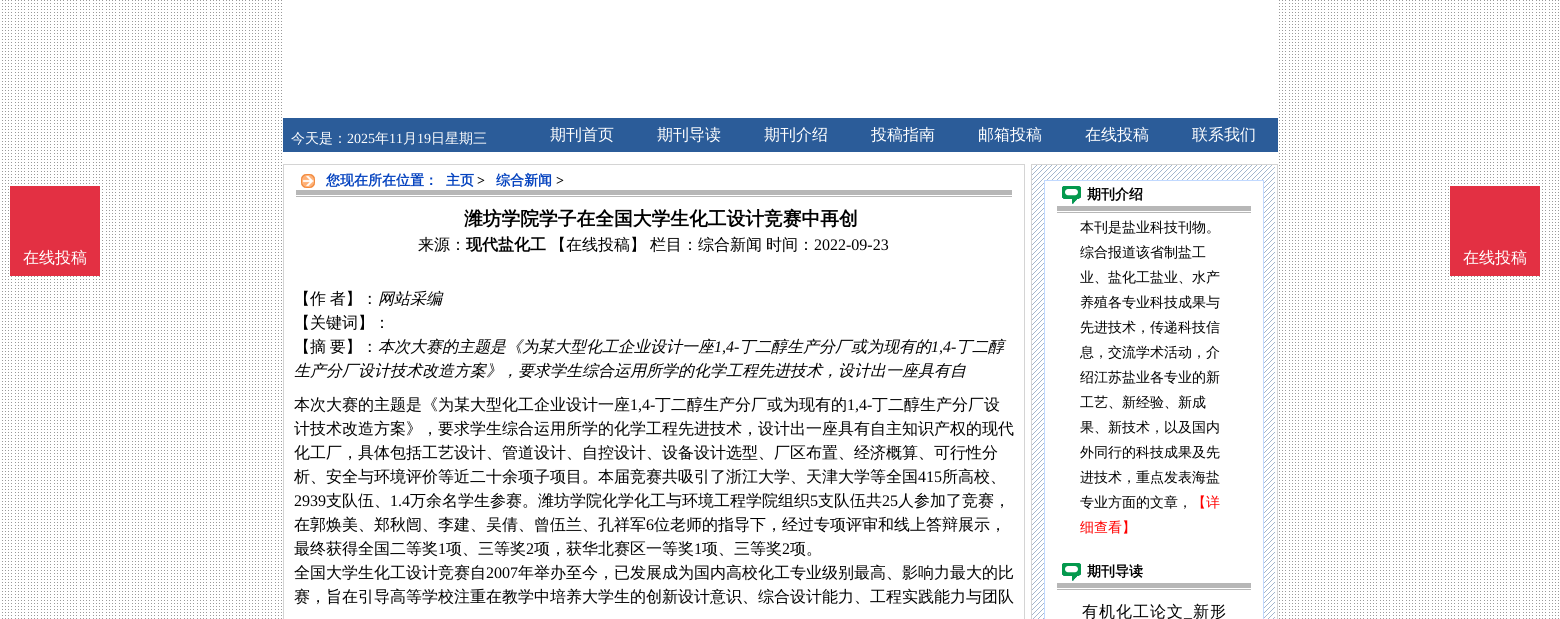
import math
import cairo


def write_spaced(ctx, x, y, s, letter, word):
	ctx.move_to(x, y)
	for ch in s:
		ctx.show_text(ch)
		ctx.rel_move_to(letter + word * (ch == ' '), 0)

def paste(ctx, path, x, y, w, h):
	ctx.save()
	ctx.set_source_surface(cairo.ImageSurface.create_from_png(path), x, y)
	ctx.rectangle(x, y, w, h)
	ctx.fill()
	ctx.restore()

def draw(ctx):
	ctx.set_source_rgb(1, 1, 1)
	ctx.paint()
	paste(ctx, 'media/1.png', 2, 0, 1557, 619)
	ctx.set_source_rgb(1, 1, 1)
	ctx.rectangle(284, 0, 993, 619)
	ctx.fill()
	ctx.set_source_rgb(0.169, 0.361, 0.6)
	ctx.rectangle(283, 118, 995, 34)
	ctx.fill()
	ctx.select_font_face('WenQuanYi Zen Hei Medium')
	ctx.set_font_size(14)
	ctx.set_source_rgb(1, 1, 1)
	ctx.move_to(291, 143)
	ctx.show_text('今天是：')
	ctx.select_font_face('Liberation Serif')
	ctx.move_to(347, 143)
	ctx.show_text('2025')
	ctx.select_font_face('WenQuanYi Zen Hei Medium')
	ctx.move_to(375, 143)
	ctx.show_text('年')
	ctx.select_font_face('Liberation Serif')
	ctx.move_to(389, 143)
	ctx.show_text('11')
	ctx.select_font_face('WenQuanYi Zen Hei Medium')
	ctx.move_to(403, 143)
	ctx.show_text('月')
	ctx.select_font_face('Liberation Serif')
	ctx.move_to(417, 143)
	ctx.show_text('19')
	ctx.select_font_face('WenQuanYi Zen Hei Medium')
	ctx.move_to(431, 143)
	ctx.show_text('日星期三')
	ctx.set_font_size(16)
	for x, y, s in [
		(550, 140, '期刊首页'),
		(657, 140, '期刊导读'),
		(764, 140, '期刊介绍'),
		(871, 140, '投稿指南'),
		(978, 140, '邮箱投稿'),
		(1085, 140, '在线投稿'),
		(1192, 140, '联系我们'),
	]:
		ctx.move_to(x, y)
		ctx.show_text(s)
	ctx.set_source_rgb(0.89, 0.188, 0.263)
	ctx.rectangle(10, 186, 90, 90)
	ctx.fill()
	ctx.set_source_rgb(1, 1, 1)
	ctx.move_to(23, 263)
	ctx.show_text('在线投稿')
	ctx.rectangle(283.5, 164.5, 741, 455)
	ctx.set_source_rgb(0.831, 0.831, 0.831)
	ctx.set_line_width(1)
	ctx.stroke()
	paste(ctx, 'media/2.png', 296, 190, 716, 7)
	paste(ctx, 'media/3.png', 301, 174, 14, 14)
	ctx.select_font_face('WenQuanYi Zen Hei', cairo.FONT_SLANT_NORMAL, cairo.FONT_WEIGHT_BOLD)
	ctx.set_font_size(14)
	ctx.set_source_rgb(0.02, 0.263, 0.749)
	ctx.move_to(326, 185)
	ctx.show_text('您现在所在位置：')
	ctx.move_to(446, 185)
	ctx.show_text('主页')
	ctx.select_font_face('Liberation Serif', cairo.FONT_SLANT_NORMAL, cairo.FONT_WEIGHT_BOLD)
	ctx.set_source_rgb(0, 0, 0)
	ctx.move_to(477, 185)
	ctx.show_text('>')
	ctx.select_font_face('WenQuanYi Zen Hei', cairo.FONT_SLANT_NORMAL, cairo.FONT_WEIGHT_BOLD)
	ctx.set_source_rgb(0.02, 0.263, 0.749)
	ctx.move_to(496, 185)
	ctx.show_text('综合新闻')
	ctx.select_font_face('Liberation Serif', cairo.FONT_SLANT_NORMAL, cairo.FONT_WEIGHT_BOLD)
	ctx.set_source_rgb(0, 0, 0)
	ctx.move_to(556, 185)
	ctx.show_text('>')
	ctx.select_font_face('WenQuanYi Zen Hei', cairo.FONT_SLANT_NORMAL, cairo.FONT_WEIGHT_BOLD)
	ctx.set_font_size(18.75)
	ctx.move_to(464, 225)
	ctx.show_text('潍坊学院学子在全国大学生化工设计竞赛中再创')
	ctx.select_font_face('WenQuanYi Zen Hei Medium')
	ctx.set_font_size(16)
	ctx.move_to(418, 250)
	ctx.show_text('来源：')
	ctx.select_font_face('WenQuanYi Zen Hei', cairo.FONT_SLANT_NORMAL, cairo.FONT_WEIGHT_BOLD)
	ctx.move_to(466, 250)
	ctx.show_text('现代盐化工')
	ctx.select_font_face('WenQuanYi Zen Hei Medium')
	for x, y, s in [
		(550, 250, '【在线投稿】'),
		(650, 250, '栏目：综合新闻'),
		(766, 250, '时间：'),
	]:
		ctx.move_to(x, y)
		ctx.show_text(s)
	ctx.select_font_face('Liberation Serif')
	ctx.move_to(814, 250)
	ctx.show_text('2022-09-23')
	ctx.select_font_face('WenQuanYi Zen Hei Medium')
	write_spaced(ctx, 294, 304, '【作 者】：', 0, -1)
	ctx.select_font_face('WenQuanYi Zen Hei Medium', cairo.FONT_SLANT_ITALIC)
	ctx.move_to(378, 304)
	ctx.show_text('网站采编')
	ctx.select_font_face('WenQuanYi Zen Hei Medium')
	ctx.move_to(294, 328)
	ctx.show_text('【关键词】：')
	write_spaced(ctx, 294, 352, '【摘 要】：', 0, -1)
	ctx.select_font_face('WenQuanYi Zen Hei Medium', cairo.FONT_SLANT_ITALIC)
	ctx.move_to(378, 352)
	ctx.show_text('本次大赛的主题是《为某大型化工企业设计一座')
	ctx.select_font_face('Liberation Serif', cairo.FONT_SLANT_ITALIC)
	ctx.move_to(714, 352)
	ctx.show_text('1,4-')
	ctx.select_font_face('WenQuanYi Zen Hei Medium', cairo.FONT_SLANT_ITALIC)
	ctx.move_to(739, 352)
	ctx.show_text('丁二醇生产分厂或为现有的')
	ctx.select_font_face('Liberation Serif', cairo.FONT_SLANT_ITALIC)
	ctx.move_to(931, 352)
	ctx.show_text('1,4-')
	ctx.select_font_face('WenQuanYi Zen Hei Medium', cairo.FONT_SLANT_ITALIC)
	ctx.move_to(956, 352)
	ctx.show_text('丁二醇')
	ctx.move_to(294, 376)
	ctx.show_text('生产分厂设计技术改造方案》，要求学生综合运用所学的化学工程先进技术，设计出一座具有自')
	ctx.select_font_face('WenQuanYi Zen Hei Medium')
	ctx.move_to(294, 410)
	ctx.show_text('本次大赛的主题是《为某大型化工企业设计一座')
	ctx.select_font_face('Liberation Serif')
	ctx.move_to(630, 410)
	ctx.show_text('1,4-')
	ctx.select_font_face('WenQuanYi Zen Hei Medium')
	ctx.move_to(655, 410)
	ctx.show_text('丁二醇生产分厂或为现有的')
	ctx.select_font_face('Liberation Serif')
	ctx.move_to(847, 410)
	ctx.show_text('1,4-')
	ctx.select_font_face('WenQuanYi Zen Hei Medium')
	for x, y, s in [
		(872, 410, '丁二醇生产分厂设'),
		(294, 434, '计技术改造方案》，要求学生综合运用所学的化学工程先进技术，设计出一座具有自主知识产权的现代'),
		(294, 458, '化工厂，具体包括工艺设计、管道设计、自控设计、设备设计选型、厂区布置、经济概算、可行性分'),
		(294, 482, '析、安全与环境评价等近二十余项子项目。本届竞赛共吸引了浙江大学、天津大学等全国'),
	]:
		ctx.move_to(x, y)
		ctx.show_text(s)
	ctx.select_font_face('Liberation Serif')
	ctx.move_to(918, 482)
	ctx.show_text('415')
	ctx.select_font_face('WenQuanYi Zen Hei Medium')
	ctx.move_to(942, 482)
	ctx.show_text('所高校、')
	ctx.select_font_face('Liberation Serif')
	ctx.move_to(294, 506)
	ctx.show_text('2939')
	ctx.select_font_face('WenQuanYi Zen Hei Medium')
	ctx.move_to(326, 506)
	ctx.show_text('支队伍、')
	ctx.select_font_face('Liberation Serif')
	ctx.move_to(390, 506)
	ctx.show_text('1.4')
	ctx.select_font_face('WenQuanYi Zen Hei Medium')
	ctx.move_to(410, 506)
	ctx.show_text('万余名学生参赛。潍坊学院化学化工与环境工程学院组织')
	ctx.select_font_face('Liberation Serif')
	ctx.move_to(810, 506)
	ctx.show_text('5')
	ctx.select_font_face('WenQuanYi Zen Hei Medium')
	ctx.move_to(818, 506)
	ctx.show_text('支队伍共')
	ctx.select_font_face('Liberation Serif')
	ctx.move_to(882, 506)
	ctx.show_text('25')
	ctx.select_font_face('WenQuanYi Zen Hei Medium')
	ctx.move_to(898, 506)
	ctx.show_text('人参加了竞赛，')
	ctx.move_to(294, 530)
	ctx.show_text('在郭焕美、郑秋闿、李建、吴倩、曾伍兰、孔祥军')
	ctx.select_font_face('Liberation Serif')
	ctx.move_to(646, 530)
	ctx.show_text('6')
	ctx.select_font_face('WenQuanYi Zen Hei Medium')
	ctx.move_to(654, 530)
	ctx.show_text('位老师的指导下，经过专项评审和线上答辩展示，')
	ctx.move_to(294, 554)
	ctx.show_text('最终获得全国二等奖')
	ctx.select_font_face('Liberation Serif')
	ctx.move_to(438, 554)
	ctx.show_text('1')
	ctx.select_font_face('WenQuanYi Zen Hei Medium')
	ctx.move_to(446, 554)
	ctx.show_text('项、三等奖')
	ctx.select_font_face('Liberation Serif')
	ctx.move_to(526, 554)
	ctx.show_text('2')
	ctx.select_font_face('WenQuanYi Zen Hei Medium')
	ctx.move_to(534, 554)
	ctx.show_text('项，获华北赛区一等奖')
	ctx.select_font_face('Liberation Serif')
	ctx.move_to(694, 554)
	ctx.show_text('1')
	ctx.select_font_face('WenQuanYi Zen Hei Medium')
	ctx.move_to(702, 554)
	ctx.show_text('项、三等奖')
	ctx.select_font_face('Liberation Serif')
	ctx.move_to(782, 554)
	ctx.show_text('2')
	ctx.select_font_face('WenQuanYi Zen Hei Medium')
	ctx.move_to(790, 554)
	ctx.show_text('项。')
	ctx.move_to(294, 578)
	ctx.show_text('全国大学生化工设计竞赛自')
	ctx.select_font_face('Liberation Serif')
	ctx.move_to(486, 578)
	ctx.show_text('2007')
	ctx.select_font_face('WenQuanYi Zen Hei Medium')
	ctx.move_to(518, 578)
	ctx.show_text('年举办至今，已发展成为国内高校化工专业级别最高、影响力最大的比')
	ctx.move_to(294, 602)
	ctx.show_text('赛，旨在引导高等学校注重在教学中培养大学生的创新设计意识、综合设计能力、工程实践能力与团队')
	paste(ctx, 'media/4.png', 1032, 165, 243, 454)
	ctx.rectangle(1031.5, 164.5, 246, 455)
	ctx.set_source_rgb(0.831, 0.831, 0.831)
	ctx.stroke()
	ctx.set_source_rgb(1, 1, 1)
	ctx.rectangle(1044.5, 180.5, 219, 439)
	ctx.fill_preserve()
	ctx.set_source_rgb(0.757, 0.851, 1)
	ctx.stroke()
	paste(ctx, 'media/5.png', 1057, 206, 194, 7)
	paste(ctx, 'media/6.png', 1062, 186, 19, 18)
	ctx.select_font_face('WenQuanYi Zen Hei', cairo.FONT_SLANT_NORMAL, cairo.FONT_WEIGHT_BOLD)
	ctx.set_font_size(14)
	ctx.set_source_rgb(0, 0, 0)
	ctx.move_to(1087, 199)
	ctx.show_text('期刊介绍')
	ctx.select_font_face('WenQuanYi Zen Hei Medium')
	for x, y, s in [
		(1080, 232, '本刊是盐业科技刊物。'),
		(1080, 257, '综合报道该省制盐工'),
		(1080, 282, '业、盐化工盐业、水产'),
		(1080, 307, '养殖各专业科技成果与'),
		(1080, 332, '先进技术，传递科技信'),
		(1080, 357, '息，交流学术活动，介'),
		(1080, 382, '绍江苏盐业各专业的新'),
		(1080, 407, '工艺、新经验、新成'),
		(1080, 432, '果、新技术，以及国内'),
		(1080, 457, '外同行的科技成果及先'),
		(1080, 482, '进技术，重点发表海盐'),
		(1080, 507, '专业方面的文章，'),
	]:
		ctx.move_to(x, y)
		ctx.show_text(s)
	ctx.set_source_rgb(1, 0, 0)
	ctx.move_to(1192, 507)
	ctx.show_text('【详')
	ctx.move_to(1080, 532)
	ctx.show_text('细查看】')
	paste(ctx, 'media/5.png', 1057, 583, 194, 7)
	paste(ctx, 'media/6.png', 1062, 563, 19, 18)
	ctx.select_font_face('WenQuanYi Zen Hei', cairo.FONT_SLANT_NORMAL, cairo.FONT_WEIGHT_BOLD)
	ctx.set_source_rgb(0, 0, 0)
	ctx.move_to(1087, 576)
	ctx.show_text('期刊导读')
	ctx.select_font_face('WenQuanYi Zen Hei Medium')
	ctx.set_font_size(16)
	write_spaced(ctx, 1082, 617, '有机化工论文', 1, 0)
	ctx.select_font_face('Liberation Serif')
	write_spaced(ctx, 1184, 617, '_', 1, 0)
	ctx.select_font_face('WenQuanYi Zen Hei Medium')
	write_spaced(ctx, 1193, 617, '新形', 1, 0)
	ctx.set_source_rgb(0.89, 0.188, 0.263)
	ctx.rectangle(1450, 186, 90, 90)
	ctx.fill()
	ctx.set_source_rgb(1, 1, 1)
	ctx.move_to(1463, 263)
	ctx.show_text('在线投稿')


surface = cairo.ImageSurface(cairo.FORMAT_RGB24, 1560, 619)
ctx = cairo.Context(surface)
options = cairo.FontOptions()
options.set_hint_metrics(cairo.HINT_METRICS_OFF)
options.set_hint_style(cairo.HINT_STYLE_NONE)
ctx.set_font_options(options)
ctx.set_miter_limit(4)
draw(ctx)
surface.write_to_png('image.png')
